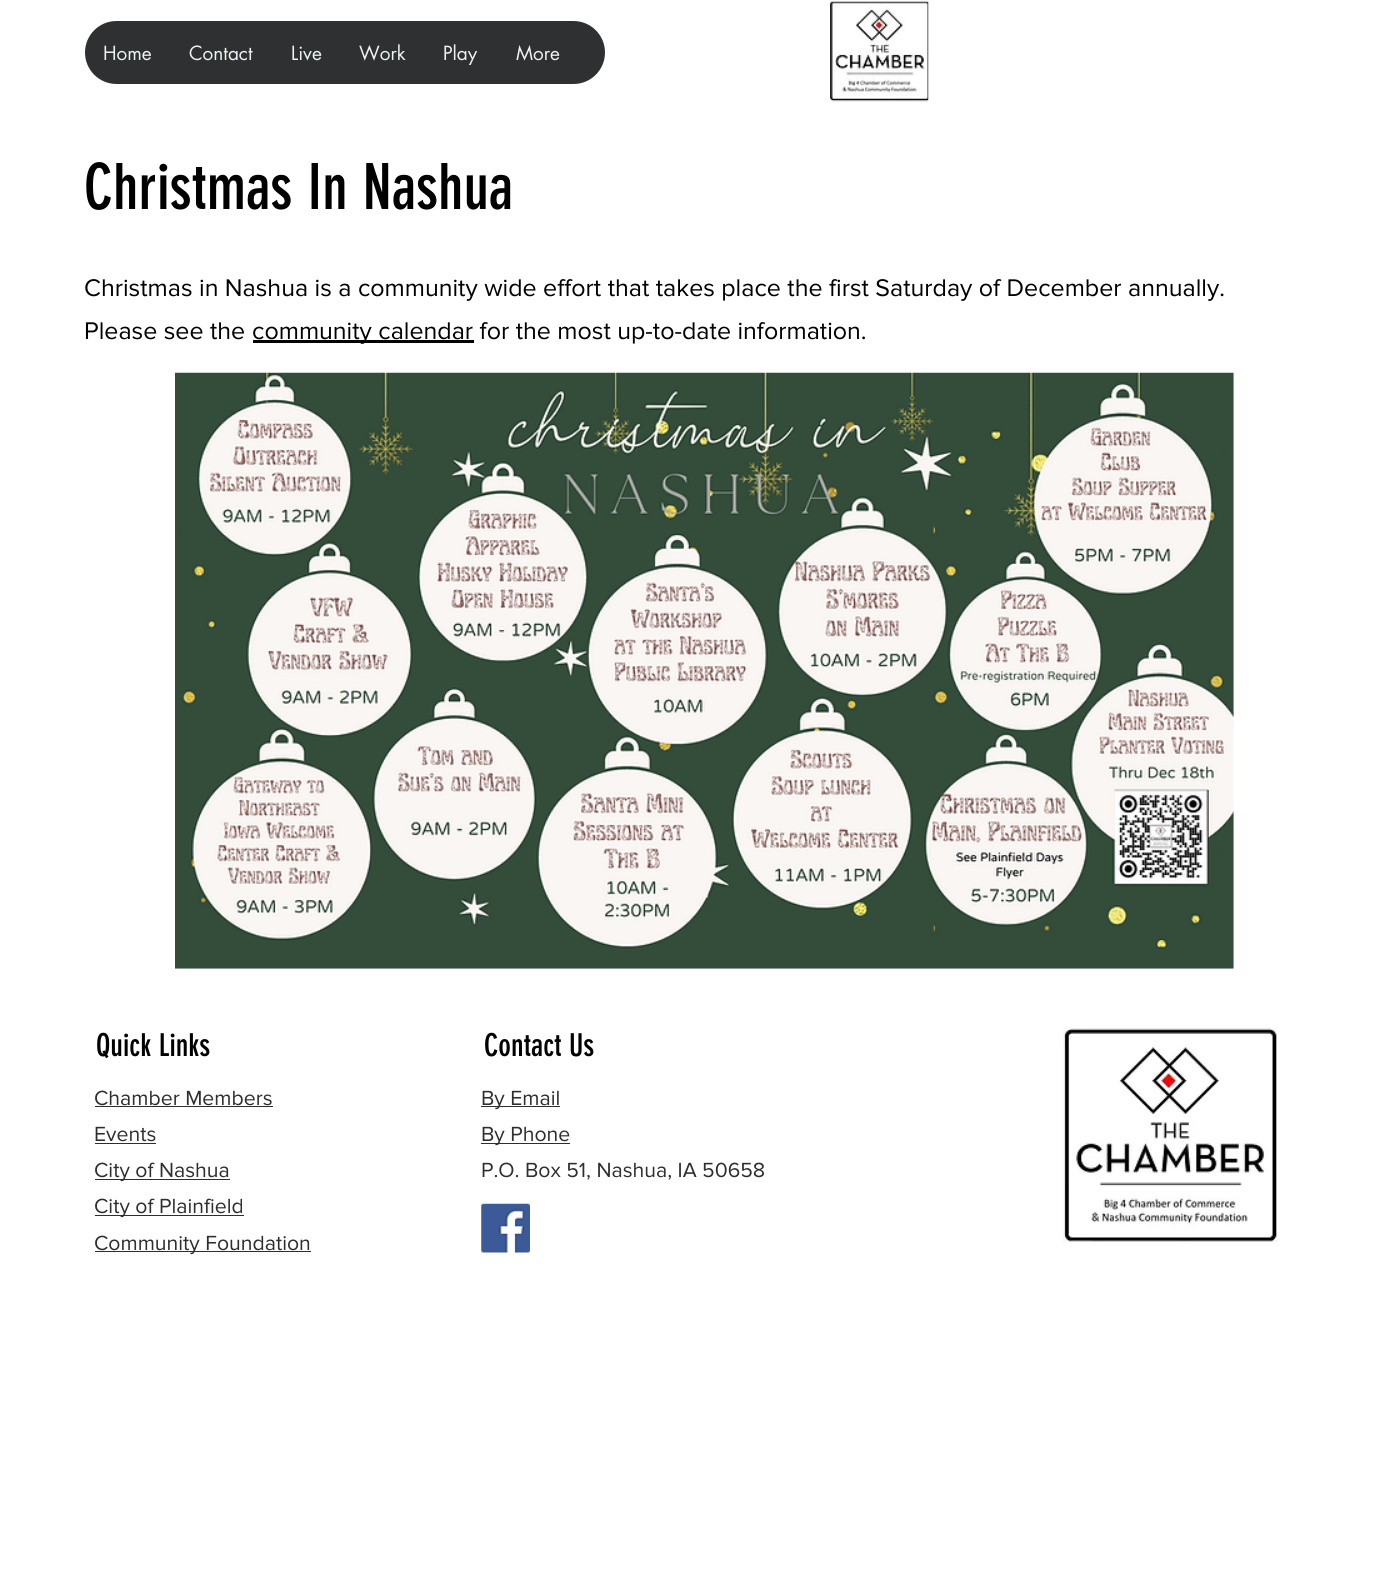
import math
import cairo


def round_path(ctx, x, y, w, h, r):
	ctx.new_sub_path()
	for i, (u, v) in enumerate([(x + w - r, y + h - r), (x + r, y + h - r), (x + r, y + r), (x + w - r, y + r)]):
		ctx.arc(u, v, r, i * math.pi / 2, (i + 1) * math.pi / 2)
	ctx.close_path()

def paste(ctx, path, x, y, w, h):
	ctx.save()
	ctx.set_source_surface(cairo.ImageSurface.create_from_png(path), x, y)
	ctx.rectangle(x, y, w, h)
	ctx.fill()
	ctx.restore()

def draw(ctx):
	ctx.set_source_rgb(1, 1, 1)
	ctx.paint()
	ctx.set_source_rgb(0.184, 0.188, 0.192)
	round_path(ctx, 85, 21, 520, 63, 31.5)
	ctx.fill()
	ctx.select_font_face('futura')
	ctx.set_font_size(19)
	ctx.set_source_rgb(0.929, 0.949, 0.957)
	for x, y, s in [
		(103, 60, 'Home'),
		(189, 60, 'Contact'),
		(291, 60, 'Live'),
		(359, 60, 'Work'),
		(443, 60, 'Play'),
		(516, 60, 'More'),
	]:
		ctx.move_to(x, y)
		ctx.show_text(s)
	paste(ctx, 'media/1.png', 830, 1, 99, 101)
	ctx.select_font_face('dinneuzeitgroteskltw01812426')
	ctx.set_font_size(62.5)
	ctx.set_source_rgb(0, 0, 0)
	ctx.move_to(84, 209)
	ctx.show_text('Christmas In Nashua')
	ctx.select_font_face('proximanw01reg')
	ctx.set_font_size(25)
	ctx.move_to(84, 296)
	ctx.show_text('Christmas in Nashua is a community wide effort that takes place the first Saturday of December annually.')
	ctx.move_to(84, 339)
	ctx.show_text('Please see the')
	ctx.rectangle(253, 340, 221, 3)
	ctx.fill()
	ctx.move_to(252, 339)
	ctx.show_text('community calendar for the most up-to-date information.')
	paste(ctx, 'media/2.png', 175, 372, 1059, 597)
	ctx.select_font_face('dinneuzeitgroteskltw01812426')
	ctx.set_font_size(31)
	ctx.move_to(96, 1056)
	ctx.show_text('Quick Links')
	ctx.move_to(484, 1056)
	ctx.show_text('Contact Us')
	paste(ctx, 'media/3.png', 1063, 1028, 215, 217)
	ctx.select_font_face('proximanw01reg')
	ctx.set_font_size(21.25)
	ctx.set_source_rgb(0.184, 0.18, 0.18)
	ctx.move_to(94, 1105)
	ctx.show_text('Chamber Members')
	ctx.rectangle(95, 1106, 178, 1)
	ctx.fill()
	ctx.move_to(94, 1141)
	ctx.show_text('Events')
	ctx.rectangle(95, 1143, 61, 1)
	ctx.fill()
	ctx.rectangle(95, 1179, 135, 1)
	ctx.fill()
	ctx.move_to(94, 1177)
	ctx.show_text('City of Nashua')
	ctx.rectangle(95, 1215, 149, 1)
	ctx.fill()
	ctx.move_to(94, 1213)
	ctx.show_text('City of Plainfield')
	ctx.rectangle(95, 1251, 216, 1)
	ctx.fill()
	ctx.move_to(94, 1250)
	ctx.show_text('Community Foundation')
	ctx.rectangle(481, 1106, 79, 1)
	ctx.fill()
	ctx.move_to(481, 1105)
	ctx.show_text('By Email')
	ctx.rectangle(481, 1143, 89, 1)
	ctx.fill()
	ctx.move_to(481, 1141)
	ctx.show_text('By Phone')
	ctx.move_to(481, 1177)
	ctx.show_text('P.O. Box 51, Nashua, IA 50658')
	paste(ctx, 'media/4.png', 481, 1203, 49, 50)


surface = cairo.ImageSurface(cairo.FORMAT_RGB24, 1393, 1587)
ctx = cairo.Context(surface)
options = cairo.FontOptions()
options.set_hint_metrics(cairo.HINT_METRICS_OFF)
options.set_hint_style(cairo.HINT_STYLE_NONE)
ctx.set_font_options(options)
ctx.set_miter_limit(4)
draw(ctx)
surface.write_to_png('image.png')
